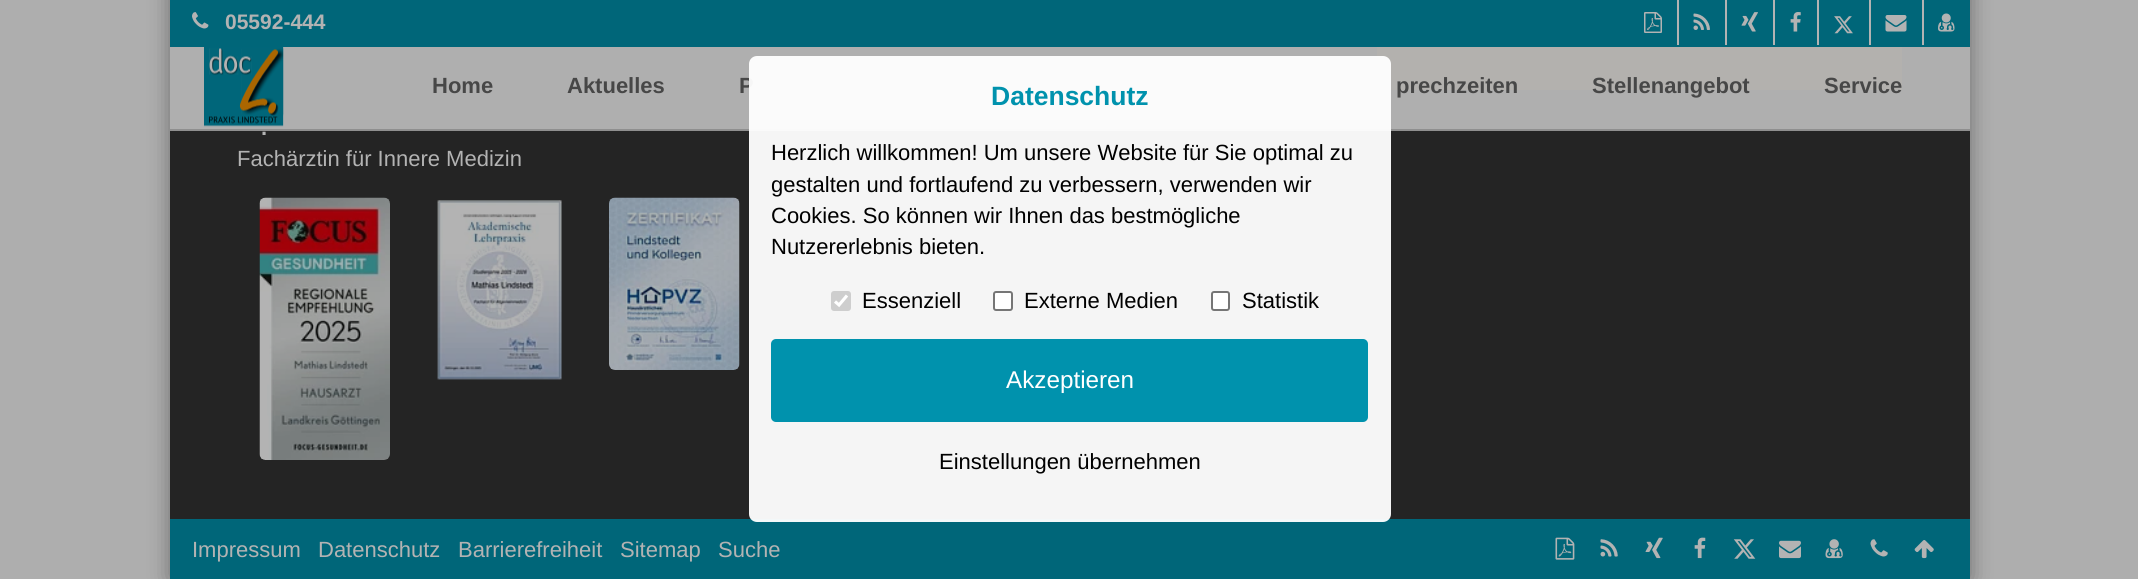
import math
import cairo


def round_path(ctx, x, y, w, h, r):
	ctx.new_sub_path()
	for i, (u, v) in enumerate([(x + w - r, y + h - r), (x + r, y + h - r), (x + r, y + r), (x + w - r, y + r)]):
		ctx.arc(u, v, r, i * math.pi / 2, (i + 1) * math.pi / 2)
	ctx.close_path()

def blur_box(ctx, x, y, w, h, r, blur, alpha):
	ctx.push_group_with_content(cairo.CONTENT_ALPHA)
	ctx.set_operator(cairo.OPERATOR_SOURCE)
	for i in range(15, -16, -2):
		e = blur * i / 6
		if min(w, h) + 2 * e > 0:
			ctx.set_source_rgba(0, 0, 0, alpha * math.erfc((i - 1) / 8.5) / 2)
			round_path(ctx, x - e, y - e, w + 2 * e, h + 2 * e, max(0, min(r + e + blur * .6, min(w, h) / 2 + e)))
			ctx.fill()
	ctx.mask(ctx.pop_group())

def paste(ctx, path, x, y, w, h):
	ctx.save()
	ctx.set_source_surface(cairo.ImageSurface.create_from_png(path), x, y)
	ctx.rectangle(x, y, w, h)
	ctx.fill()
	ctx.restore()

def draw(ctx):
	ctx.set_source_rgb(0.682, 0.682, 0.682)
	ctx.paint()
	ctx.set_source_rgb(0, 0, 0)
	blur_box(ctx, 170, -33, 1800, 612, 0, 11, 0.37)
	ctx.set_source_rgb(0.141, 0.141, 0.141)
	ctx.rectangle(170, 47, 1800, 472)
	ctx.fill()
	ctx.set_source_rgb(0.702, 0.416, 0)
	ctx.rectangle(1377, 47, 525, 43)
	ctx.fill()
	ctx.set_source_rgba(0.702, 0.702, 0.702, 0.97)
	ctx.rectangle(170, 47, 1800, 82)
	ctx.fill()
	ctx.set_source_rgb(0.561, 0.561, 0.561)
	ctx.rectangle(170, 129, 1800, 2)
	ctx.fill()
	ctx.set_source_rgb(0, 0.4, 0.475)
	ctx.rectangle(170, 0, 1800, 47)
	ctx.fill()
	paste(ctx, 'media/1.png', 192, 12, 17, 17)
	ctx.select_font_face('Liberation Sans', cairo.FONT_SLANT_NORMAL, cairo.FONT_WEIGHT_BOLD)
	ctx.set_font_size(21)
	ctx.set_source_rgb(0.702, 0.702, 0.702)
	ctx.move_to(225, 29)
	ctx.show_text('05592-444')
	ctx.rectangle(1677, 0, 2, 45)
	ctx.fill()
	paste(ctx, 'media/2.png', 1644, 12, 18, 21)
	ctx.rectangle(1725, 0, 2, 45)
	ctx.fill()
	paste(ctx, 'media/3.png', 1693, 13, 17, 17)
	ctx.rectangle(1773, 0, 2, 45)
	ctx.fill()
	paste(ctx, 'media/4.png', 1741, 12, 17, 20)
	ctx.rectangle(1817, 0, 2, 45)
	ctx.fill()
	paste(ctx, 'media/5.png', 1790, 12, 11, 20)
	ctx.rectangle(1869, 0, 2, 45)
	ctx.fill()
	paste(ctx, 'media/6.png', 1834, 16, 19, 18)
	ctx.rectangle(1922, 0, 2, 45)
	ctx.fill()
	paste(ctx, 'media/7.png', 1885, 15, 22, 17)
	paste(ctx, 'media/8.png', 1938, 13, 17, 19)
	paste(ctx, 'media/9.png', 204, 47, 80, 80)
	ctx.set_font_size(22)
	ctx.set_source_rgb(0.278, 0.278, 0.278)
	for x, y, s in [
		(432, 93, 'Home'),
		(567, 93, 'Aktuelles'),
		(739, 93, 'P'),
		(1396, 93, 'prechzeiten'),
		(1592, 93, 'Stellenangebot'),
		(1824, 93, 'Service'),
	]:
		ctx.move_to(x, y)
		ctx.show_text(s)
	ctx.set_source_rgb(0.702, 0.702, 0.702)
	ctx.move_to(261, 135)
	ctx.show_text('.')
	ctx.select_font_face('Liberation Sans')
	ctx.move_to(237, 166)
	ctx.show_text('Fachärztin für Innere Medizin')
	paste(ctx, 'media/10.png', 259, 197, 131, 263)
	paste(ctx, 'media/11.png', 437, 200, 125, 180)
	paste(ctx, 'media/12.png', 609, 197, 131, 173)
	ctx.set_source_rgb(0, 0.4, 0.475)
	ctx.rectangle(170, 519, 1800, 60)
	ctx.fill()
	ctx.set_source_rgb(0.702, 0.702, 0.702)
	for x, y, s in [
		(192, 557, 'Impressum'),
		(318, 557, 'Datenschutz'),
		(458, 557, 'Barrierefreiheit'),
		(620, 557, 'Sitemap'),
		(718, 557, 'Suche'),
	]:
		ctx.move_to(x, y)
		ctx.show_text(s)
	paste(ctx, 'media/13.png', 1555, 537, 20, 23)
	paste(ctx, 'media/14.png', 1600, 539, 18, 18)
	paste(ctx, 'media/15.png', 1645, 537, 18, 22)
	paste(ctx, 'media/16.png', 1694, 537, 12, 22)
	paste(ctx, 'media/17.png', 1733, 539, 23, 20)
	paste(ctx, 'media/18.png', 1779, 540, 22, 19)
	paste(ctx, 'media/19.png', 1825, 539, 18, 20)
	paste(ctx, 'media/20.png', 1870, 539, 18, 18)
	paste(ctx, 'media/21.png', 1914, 540, 20, 19)
	ctx.set_source_rgba(1, 1, 1, 0.95)
	round_path(ctx, 749, 56, 642, 466, 8)
	ctx.fill()
	ctx.select_font_face('Liberation Sans', cairo.FONT_SLANT_NORMAL, cairo.FONT_WEIGHT_BOLD)
	ctx.set_font_size(26.5)
	ctx.set_source_rgb(0, 0.573, 0.678)
	ctx.move_to(991, 105)
	ctx.show_text('Datenschutz')
	ctx.select_font_face('Liberation Sans')
	ctx.set_font_size(22)
	ctx.set_source_rgb(0, 0, 0)
	for x, y, s in [
		(771, 160, 'Herzlich willkommen! Um unsere Website für Sie optimal zu'),
		(771, 192, 'gestalten und fortlaufend zu verbessern, verwenden wir'),
		(771, 223, 'Cookies. So können wir Ihnen das bestmögliche'),
		(771, 254, 'Nutzererlebnis bieten.'),
	]:
		ctx.move_to(x, y)
		ctx.show_text(s)
	ctx.set_source_rgb(0.808, 0.808, 0.808)
	round_path(ctx, 831, 291, 20, 20, 3)
	ctx.fill()
	ctx.new_path()
	ctx.move_to(835, 301.5)
	ctx.line_to(839, 305)
	ctx.line_to(847, 295.5)
	ctx.set_source_rgb(1, 1, 1)
	ctx.set_line_width(3.1)
	ctx.stroke()
	ctx.set_source_rgb(0, 0, 0)
	ctx.move_to(862, 308)
	ctx.show_text('Essenziell')
	ctx.set_source_rgb(1, 1, 1)
	round_path(ctx, 994, 292, 18, 18, 2)
	ctx.fill_preserve()
	ctx.set_source_rgb(0.463, 0.463, 0.463)
	ctx.set_line_width(2)
	ctx.stroke()
	ctx.set_source_rgb(0, 0, 0)
	ctx.move_to(1024, 308)
	ctx.show_text('Externe Medien')
	ctx.set_source_rgb(1, 1, 1)
	round_path(ctx, 1212, 292, 17, 18, 2)
	ctx.fill_preserve()
	ctx.set_source_rgb(0.463, 0.463, 0.463)
	ctx.stroke()
	ctx.set_source_rgb(0, 0, 0)
	ctx.move_to(1242, 308)
	ctx.show_text('Statistik')
	ctx.set_source_rgb(0, 0.573, 0.678)
	round_path(ctx, 771, 339, 597, 83, 5)
	ctx.fill()
	ctx.set_font_size(24.25)
	ctx.set_source_rgb(1, 1, 1)
	ctx.move_to(1006, 388)
	ctx.show_text('Akzeptieren')
	ctx.set_font_size(22)
	ctx.set_source_rgb(0, 0, 0)
	ctx.move_to(939, 469)
	ctx.show_text('Einstellungen übernehmen')


surface = cairo.ImageSurface(cairo.FORMAT_RGB24, 2138, 579)
ctx = cairo.Context(surface)
options = cairo.FontOptions()
options.set_hint_metrics(cairo.HINT_METRICS_OFF)
options.set_hint_style(cairo.HINT_STYLE_NONE)
ctx.set_font_options(options)
ctx.set_miter_limit(4)
draw(ctx)
surface.write_to_png('image.png')
